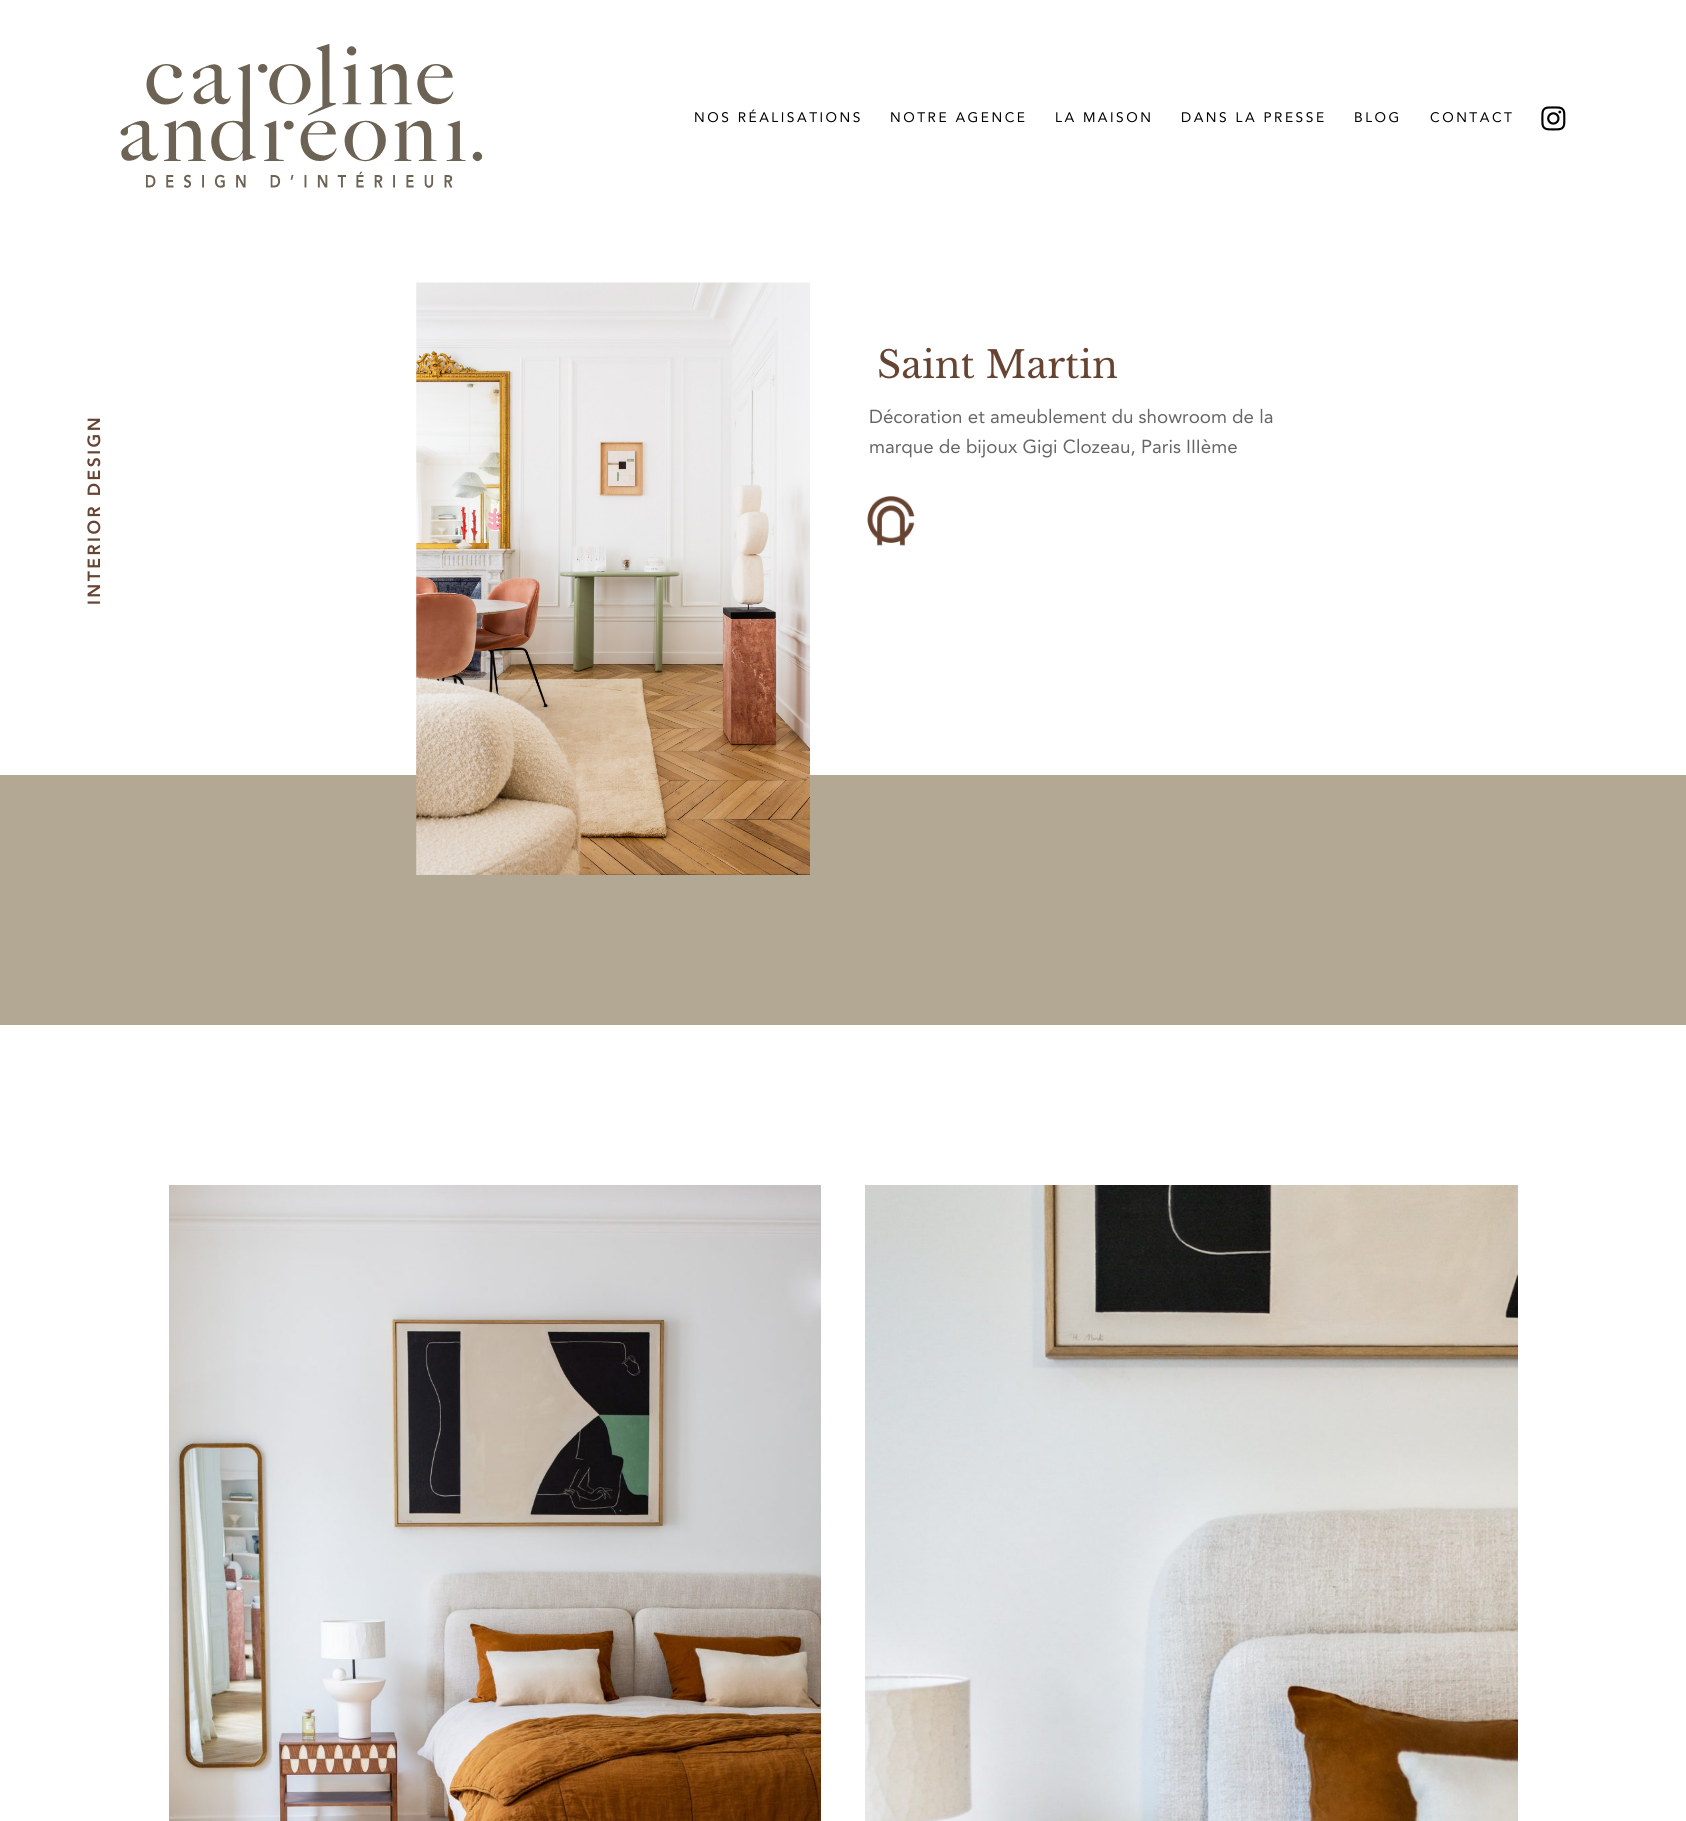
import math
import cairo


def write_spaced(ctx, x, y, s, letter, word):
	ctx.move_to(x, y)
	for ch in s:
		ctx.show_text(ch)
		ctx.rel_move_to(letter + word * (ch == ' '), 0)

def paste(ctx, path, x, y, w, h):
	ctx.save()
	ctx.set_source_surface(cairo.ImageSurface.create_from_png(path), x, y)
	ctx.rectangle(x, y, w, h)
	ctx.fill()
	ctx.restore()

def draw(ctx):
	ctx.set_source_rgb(1, 1, 1)
	ctx.paint()
	paste(ctx, 'media/1.png', 120, 44, 363, 144)
	ctx.select_font_face('Avenir')
	ctx.set_font_size(13.75)
	ctx.set_source_rgb(0, 0, 0)
	for x, y, s in [
		(694, 122, 'NOS RÉALISATIONS'),
		(890, 122, 'NOTRE AGENCE'),
		(1055, 122, 'LA MAISON'),
		(1181, 122, 'DANS LA PRESSE'),
		(1354, 122, 'BLOG'),
		(1430, 122, 'CONTACT'),
	]:
		write_spaced(ctx, x, y, s, 2.5, 0)
	paste(ctx, 'media/2.png', 1541, 106, 25, 25)
	ctx.set_source_rgb(0.698, 0.659, 0.58)
	ctx.rectangle(0, 775, 1686, 250)
	ctx.fill()
	paste(ctx, 'media/3.png', 416, 282, 394, 593)
	ctx.select_font_face('Libre Baskerville')
	ctx.set_font_size(37.5)
	ctx.set_source_rgb(0.404, 0.267, 0.196)
	ctx.move_to(877, 378)
	ctx.show_text('Saint Martin')
	ctx.select_font_face('Avenir')
	ctx.set_font_size(18.75)
	ctx.set_source_rgb(0.4, 0.4, 0.4)
	ctx.move_to(869, 423)
	ctx.show_text('Décoration et ameublement du showroom de la')
	ctx.move_to(869, 453)
	ctx.show_text('marque de bijoux Gigi Clozeau, Paris IIIème')
	paste(ctx, 'media/4.png', 867, 496, 48, 50)
	ctx.select_font_face('Avenir Black')
	ctx.set_font_size(17.5)
	ctx.set_source_rgb(0.404, 0.267, 0.196)
	ctx.save()
	ctx.translate(100, 605)
	ctx.rotate(-90 * math.pi / 180)
	write_spaced(ctx, 0, 0, 'INTERIOR DESIGN', 2.5, 0)
	ctx.restore()
	paste(ctx, 'media/5.png', 169, 1185, 652, 636)
	paste(ctx, 'media/6.png', 865, 1185, 653, 636)


surface = cairo.ImageSurface(cairo.FORMAT_RGB24, 1686, 1821)
ctx = cairo.Context(surface)
options = cairo.FontOptions()
options.set_hint_metrics(cairo.HINT_METRICS_OFF)
options.set_hint_style(cairo.HINT_STYLE_NONE)
ctx.set_font_options(options)
ctx.set_miter_limit(4)
draw(ctx)
surface.write_to_png('image.png')
